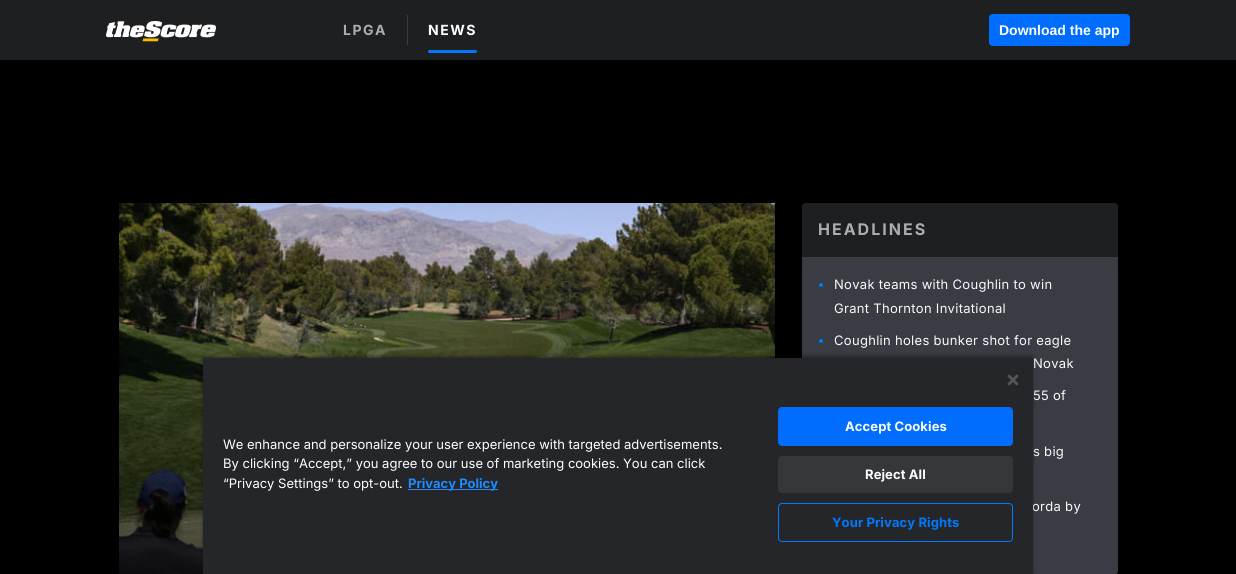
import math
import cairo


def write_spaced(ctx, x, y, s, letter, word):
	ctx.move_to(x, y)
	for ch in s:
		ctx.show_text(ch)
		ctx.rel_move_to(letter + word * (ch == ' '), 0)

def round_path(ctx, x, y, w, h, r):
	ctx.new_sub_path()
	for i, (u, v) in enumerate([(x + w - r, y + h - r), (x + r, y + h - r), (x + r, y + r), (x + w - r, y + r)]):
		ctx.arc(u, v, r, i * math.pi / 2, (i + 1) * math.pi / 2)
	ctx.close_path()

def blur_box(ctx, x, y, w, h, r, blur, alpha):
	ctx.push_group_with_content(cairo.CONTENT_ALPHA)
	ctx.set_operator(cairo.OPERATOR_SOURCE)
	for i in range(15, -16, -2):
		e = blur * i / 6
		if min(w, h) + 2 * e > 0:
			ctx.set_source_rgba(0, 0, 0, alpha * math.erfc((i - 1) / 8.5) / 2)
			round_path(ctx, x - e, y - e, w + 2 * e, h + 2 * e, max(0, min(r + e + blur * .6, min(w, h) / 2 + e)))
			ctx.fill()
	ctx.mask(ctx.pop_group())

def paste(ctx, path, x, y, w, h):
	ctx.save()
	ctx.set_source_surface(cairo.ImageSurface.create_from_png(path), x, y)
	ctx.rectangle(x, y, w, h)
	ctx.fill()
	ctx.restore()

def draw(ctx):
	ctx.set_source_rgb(0, 0, 0)
	ctx.paint()
	ctx.set_source_rgb(0.118, 0.122, 0.129)
	ctx.rectangle(0, 0, 1236, 60)
	ctx.fill()
	paste(ctx, 'media/1.png', 106, 21, 110, 21)
	ctx.set_source_rgb(0.224, 0.235, 0.259)
	ctx.rectangle(407, 15, 1, 30)
	ctx.fill()
	ctx.select_font_face('Inter', cairo.FONT_SLANT_NORMAL, cairo.FONT_WEIGHT_BOLD)
	ctx.set_font_size(14)
	ctx.set_source_rgb(0.675, 0.678, 0.678)
	write_spaced(ctx, 343, 35, 'LPGA', 1.5, 0)
	ctx.set_source_rgb(1, 1, 1)
	write_spaced(ctx, 428, 35, 'NEWS', 1.5, 0)
	ctx.set_source_rgb(0, 0.471, 0.992)
	round_path(ctx, 428, 50, 49, 3, 1.5)
	ctx.fill()
	ctx.set_source_rgb(0, 0.427, 1)
	round_path(ctx, 989, 14, 141, 32, 4)
	ctx.fill()
	ctx.select_font_face('Liberation Sans', cairo.FONT_SLANT_NORMAL, cairo.FONT_WEIGHT_BOLD)
	ctx.set_source_rgb(1, 1, 1)
	ctx.move_to(999, 35)
	ctx.show_text('Download the app')
	paste(ctx, 'media/2.png', 119, 203, 656, 371)
	ctx.set_source_rgb(0.224, 0.235, 0.259)
	round_path(ctx, 802, 203, 316, 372, 4)
	ctx.fill()
	ctx.set_source_rgb(0.118, 0.122, 0.129)
	ctx.new_path()
	ctx.move_to(806, 203)
	ctx.line_to(1114, 203)
	ctx.curve_to(1116, 203, 1118, 205, 1118, 207)
	ctx.line_to(1118, 257)
	ctx.line_to(802, 257)
	ctx.line_to(802, 207)
	ctx.curve_to(802, 205, 804, 203, 806, 203)
	ctx.close_path()
	ctx.fill()
	ctx.select_font_face('Inter', cairo.FONT_SLANT_NORMAL, cairo.FONT_WEIGHT_BOLD)
	ctx.set_font_size(16)
	ctx.set_source_rgb(0.675, 0.678, 0.678)
	write_spaced(ctx, 818, 235, 'HEADLINES', 2, 0)
	ctx.set_source_rgb(0, 0.471, 0.992)
	ctx.new_path()
	ctx.arc(821, 285, 2, 0, 2 * math.pi)
	ctx.fill()
	ctx.select_font_face('Inter')
	ctx.set_font_size(13)
	ctx.set_source_rgb(0.976, 0.976, 0.976)
	write_spaced(ctx, 834, 289, 'Novak teams with Coughlin to win', 0.3, 0)
	write_spaced(ctx, 834, 313, 'Grant Thornton Invitational', 0.3, 0)
	ctx.set_source_rgb(0, 0.471, 0.992)
	ctx.new_path()
	ctx.arc(821, 341, 2, 0, 2 * math.pi)
	ctx.fill()
	ctx.set_source_rgb(0.976, 0.976, 0.976)
	for x, y, s in [
		(834, 345, 'Coughlin holes bunker shot for eagle'),
		(1033, 368, 'Novak'),
		(1033, 400, '55 of'),
		(1033, 456, 's big'),
		(1032, 511, 'orda by'),
	]:
		write_spaced(ctx, x, y, s, 0.3, 0)
	ctx.set_source_rgb(0, 0, 0)
	blur_box(ctx, 203, 356, 830, 218, 0, 2, 0.35)
	ctx.save()
	ctx.rectangle(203, 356, 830, 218)
	ctx.clip()
	blur_box(ctx, 203, 358, 830, 216, 0, 2, 0.2)
	ctx.restore()
	ctx.set_source_rgb(0.141, 0.149, 0.161)
	ctx.rectangle(203, 358, 830, 216)
	ctx.fill()
	paste(ctx, 'media/3.png', 1007, 374, 12, 12)
	ctx.set_source_rgb(1, 1, 1)
	for x, y, s in [
		(223, 449, 'We enhance and personalize your user experience with targeted advertisements.'),
		(223, 468, 'By clicking “Accept,” you agree to our use of marketing cookies. You can click'),
		(223, 488, '“Privacy Settings” to opt-out.'),
	]:
		ctx.move_to(x, y)
		ctx.show_text(s)
	ctx.set_source_rgb(0.118, 0.549, 1)
	ctx.rectangle(408, 489, 90, 1)
	ctx.fill()
	ctx.select_font_face('Inter', cairo.FONT_SLANT_NORMAL, cairo.FONT_WEIGHT_BOLD)
	ctx.move_to(408, 488)
	ctx.show_text('Privacy Policy')
	ctx.set_source_rgb(0, 0.427, 1)
	round_path(ctx, 778.5, 407.5, 234, 38, 3.5)
	ctx.fill_preserve()
	ctx.set_line_width(1)
	ctx.stroke()
	ctx.set_source_rgb(1, 1, 1)
	write_spaced(ctx, 845, 431, 'Accept Cookies', 0.1, 0)
	ctx.set_source_rgb(0.208, 0.216, 0.227)
	round_path(ctx, 778, 456, 235, 37, 4)
	ctx.fill()
	ctx.set_source_rgb(1, 1, 1)
	write_spaced(ctx, 865, 479, 'Reject All', 0.1, 0)
	round_path(ctx, 778.5, 503.5, 234, 38, 3.5)
	ctx.set_source_rgb(0, 0.475, 1)
	ctx.stroke()
	write_spaced(ctx, 832, 527, 'Your Privacy Rights', 0.1, 0)


surface = cairo.ImageSurface(cairo.FORMAT_RGB24, 1236, 574)
ctx = cairo.Context(surface)
options = cairo.FontOptions()
options.set_hint_metrics(cairo.HINT_METRICS_OFF)
options.set_hint_style(cairo.HINT_STYLE_NONE)
ctx.set_font_options(options)
ctx.set_miter_limit(4)
draw(ctx)
surface.write_to_png('image.png')
